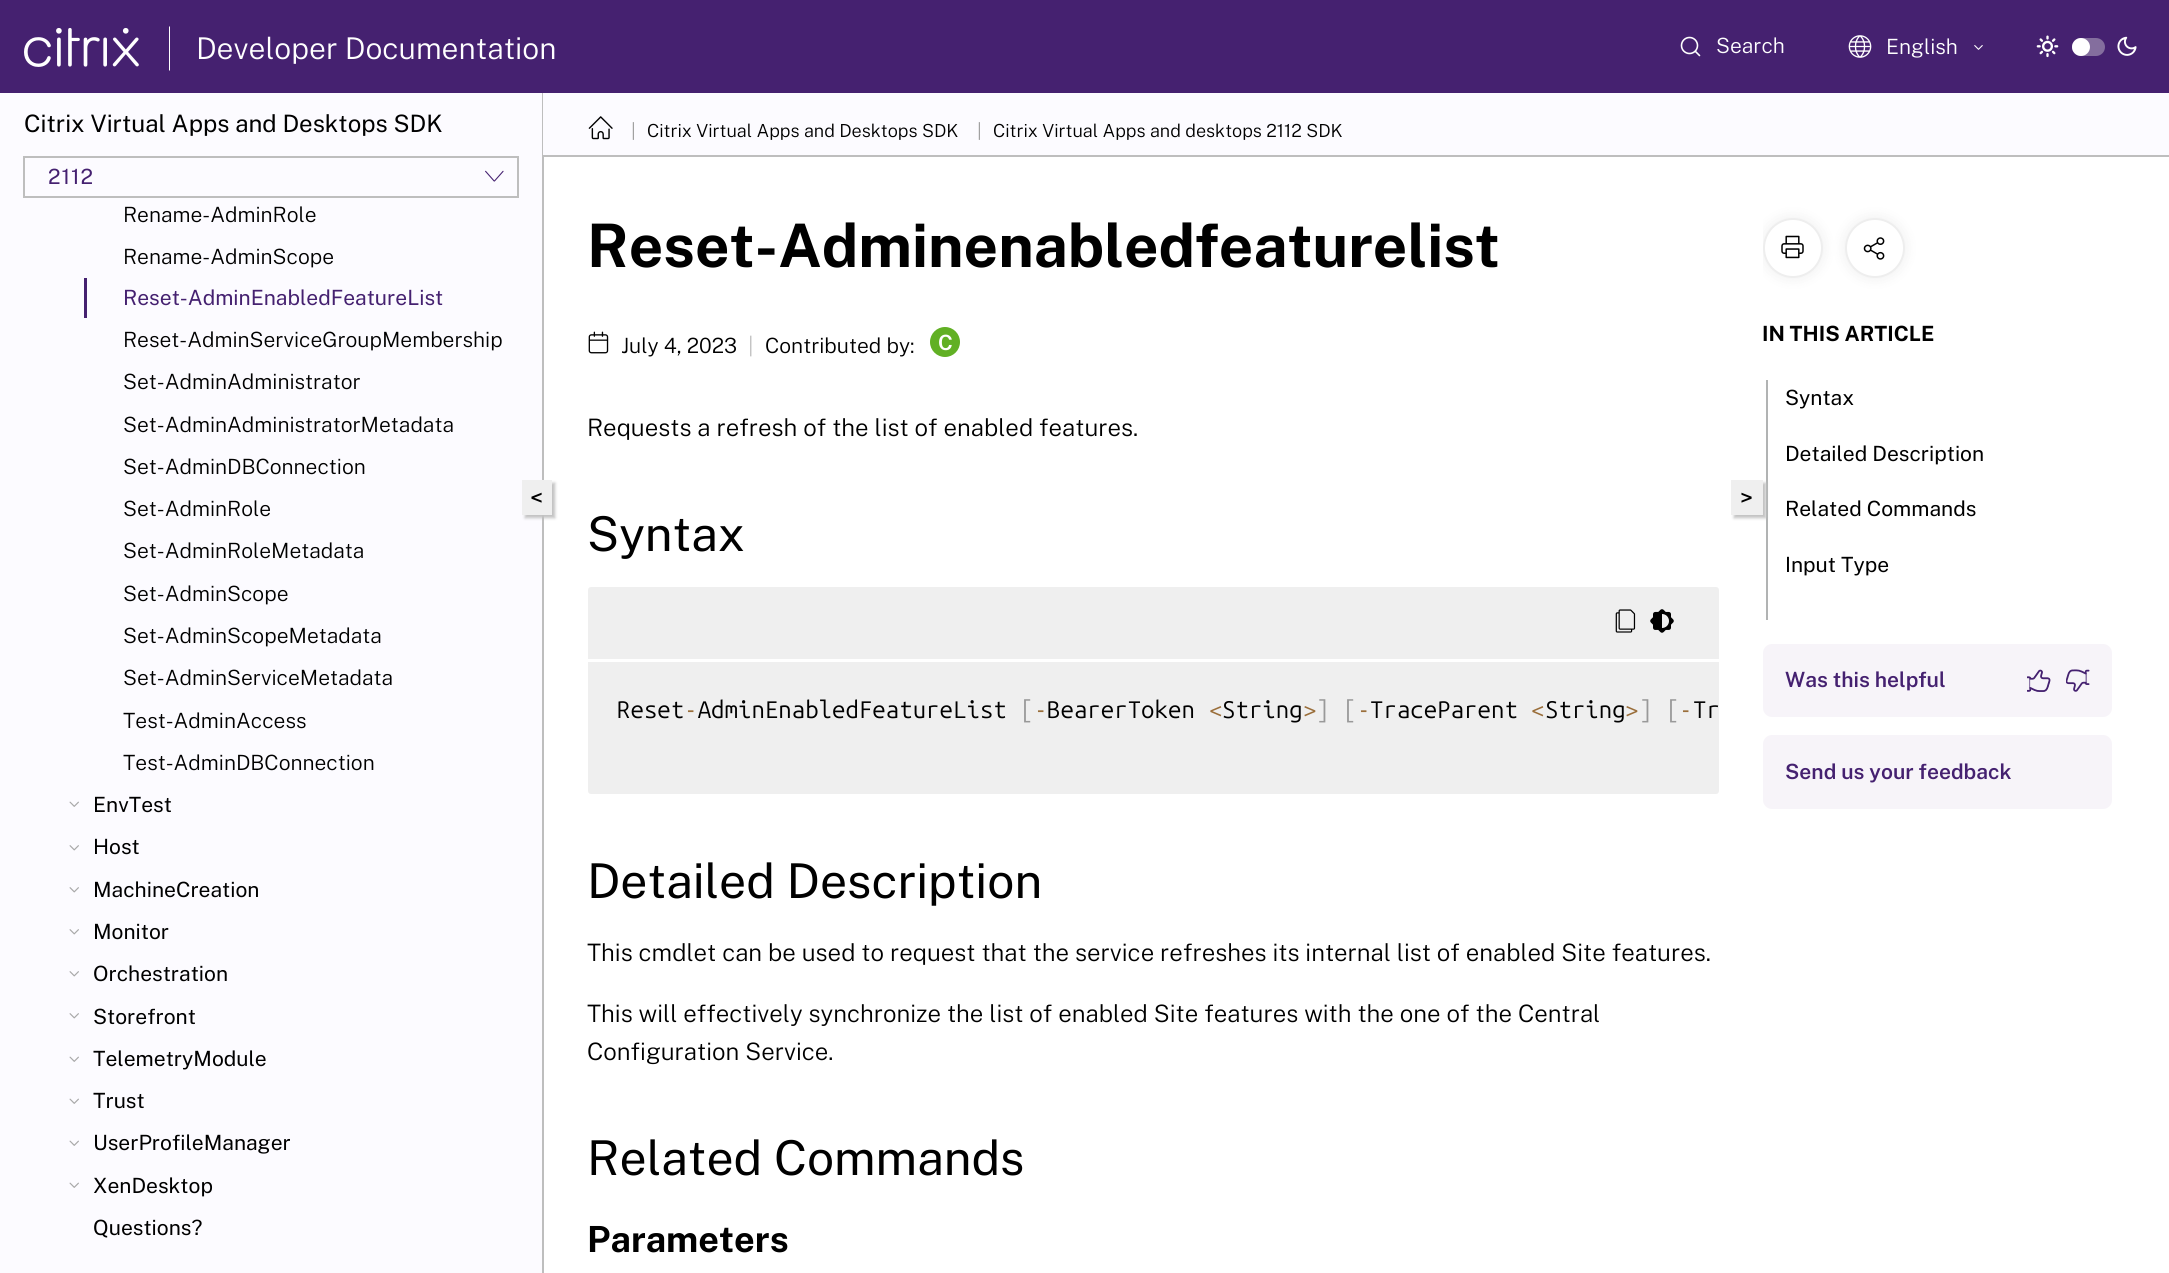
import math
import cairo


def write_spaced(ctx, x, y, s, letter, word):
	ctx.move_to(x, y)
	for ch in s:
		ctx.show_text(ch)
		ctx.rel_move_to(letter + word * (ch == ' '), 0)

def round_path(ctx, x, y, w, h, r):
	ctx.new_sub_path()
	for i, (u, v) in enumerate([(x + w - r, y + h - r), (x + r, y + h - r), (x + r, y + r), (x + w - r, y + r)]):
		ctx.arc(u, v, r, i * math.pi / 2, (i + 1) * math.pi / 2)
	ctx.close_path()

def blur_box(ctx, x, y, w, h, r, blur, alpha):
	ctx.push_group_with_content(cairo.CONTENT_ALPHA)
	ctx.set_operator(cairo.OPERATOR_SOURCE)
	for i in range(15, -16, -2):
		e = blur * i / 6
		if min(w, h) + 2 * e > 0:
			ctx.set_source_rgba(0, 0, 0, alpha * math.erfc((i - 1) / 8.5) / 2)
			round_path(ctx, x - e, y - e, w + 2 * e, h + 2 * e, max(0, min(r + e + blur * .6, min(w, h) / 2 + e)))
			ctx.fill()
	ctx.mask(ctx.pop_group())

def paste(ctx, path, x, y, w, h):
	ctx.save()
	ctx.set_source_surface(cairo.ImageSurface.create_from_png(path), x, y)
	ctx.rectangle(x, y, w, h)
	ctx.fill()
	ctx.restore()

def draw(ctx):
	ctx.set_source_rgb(1, 1, 1)
	ctx.paint()
	ctx.set_source_rgb(0.271, 0.129, 0.439)
	ctx.rectangle(0, 0, 2169, 93)
	ctx.fill()
	paste(ctx, 'media/1.png', 24, 27, 115, 40)
	ctx.set_source_rgb(1, 1, 1)
	ctx.new_path()
	ctx.move_to(170, 26)
	ctx.line_to(169, 27)
	ctx.line_to(169, 70)
	ctx.line_to(170, 71)
	ctx.line_to(170, 70)
	ctx.line_to(170, 27)
	ctx.close_path()
	ctx.fill()
	ctx.select_font_face('Public Sans Light')
	ctx.set_font_size(30)
	ctx.move_to(196, 59)
	ctx.show_text('Developer Documentation')
	paste(ctx, 'media/2.png', 1680, 36, 21, 21)
	ctx.set_font_size(21)
	ctx.move_to(1716, 53)
	ctx.show_text('Search')
	paste(ctx, 'media/3.png', 1848, 35, 24, 23)
	ctx.move_to(1886, 54)
	ctx.show_text('English')
	paste(ctx, 'media/4.png', 1974, 45, 9, 5)
	paste(ctx, 'media/5.png', 2036, 35, 23, 23)
	ctx.set_source_rgb(0.518, 0.431, 0.62)
	round_path(ctx, 2072, 38, 33, 18, 9)
	ctx.fill()
	ctx.set_source_rgb(1, 1, 1)
	ctx.arc(2081, 47, 9, 0, 2 * math.pi)
	ctx.fill()
	paste(ctx, 'media/6.png', 2117, 36, 20, 20)
	ctx.set_source_rgb(0.988, 0.984, 1)
	ctx.rectangle(0, 93, 542, 1180)
	ctx.fill()
	ctx.set_source_rgb(0.745, 0.745, 0.745)
	ctx.rectangle(542, 93, 2, 1180)
	ctx.fill()
	ctx.select_font_face('Public Sans')
	ctx.set_font_size(24)
	ctx.set_source_rgb(0, 0, 0)
	ctx.move_to(24, 132)
	ctx.show_text('Citrix Virtual Apps and Desktops SDK')
	ctx.rectangle(24, 157, 494, 40)
	ctx.set_source_rgb(0.745, 0.745, 0.745)
	ctx.stroke()
	ctx.set_font_size(21)
	ctx.set_source_rgb(0.271, 0.129, 0.439)
	write_spaced(ctx, 48, 184, '2112', 1, 0)
	paste(ctx, 'media/7.png', 485, 170, 19, 12)
	ctx.select_font_face('Public Sans Light')
	ctx.set_source_rgb(0, 0, 0)
	ctx.move_to(123, 222)
	ctx.show_text('Rename-AdminRole')
	ctx.move_to(123, 264)
	ctx.show_text('Rename-AdminScope')
	ctx.set_source_rgb(0.271, 0.129, 0.439)
	ctx.rectangle(84, 278, 3, 40)
	ctx.fill()
	ctx.select_font_face('Public Sans')
	ctx.move_to(123, 305)
	ctx.show_text('Reset-AdminEnabledFeatureList')
	ctx.select_font_face('Public Sans Light')
	ctx.set_source_rgb(0, 0, 0)
	for x, y, s in [
		(123, 347, 'Reset-AdminServiceGroupMembership'),
		(123, 389, 'Set-AdminAdministrator'),
		(123, 432, 'Set-AdminAdministratorMetadata'),
		(123, 474, 'Set-AdminDBConnection'),
		(123, 516, 'Set-AdminRole'),
		(123, 558, 'Set-AdminRoleMetadata'),
		(123, 601, 'Set-AdminScope'),
		(123, 643, 'Set-AdminScopeMetadata'),
		(123, 685, 'Set-AdminServiceMetadata'),
		(123, 728, 'Test-AdminAccess'),
		(123, 770, 'Test-AdminDBConnection'),
	]:
		ctx.move_to(x, y)
		ctx.show_text(s)
	paste(ctx, 'media/8.png', 69, 801, 10, 6)
	ctx.select_font_face('Public Sans')
	ctx.move_to(93, 812)
	ctx.show_text('EnvTest')
	paste(ctx, 'media/9.png', 69, 845, 10, 6)
	ctx.move_to(93, 854)
	ctx.show_text('Host')
	paste(ctx, 'media/9.png', 69, 887, 10, 6)
	ctx.move_to(93, 897)
	ctx.show_text('MachineCreation')
	paste(ctx, 'media/9.png', 69, 929, 10, 6)
	ctx.move_to(93, 939)
	ctx.show_text('Monitor')
	paste(ctx, 'media/9.png', 69, 971, 10, 6)
	ctx.move_to(93, 981)
	ctx.show_text('Orchestration')
	paste(ctx, 'media/9.png', 69, 1013, 10, 6)
	ctx.move_to(93, 1024)
	ctx.show_text('Storefront')
	paste(ctx, 'media/8.png', 69, 1056, 10, 6)
	ctx.move_to(93, 1066)
	ctx.show_text('TelemetryModule')
	paste(ctx, 'media/8.png', 69, 1098, 10, 6)
	ctx.move_to(93, 1108)
	ctx.show_text('Trust')
	paste(ctx, 'media/8.png', 69, 1140, 10, 6)
	ctx.move_to(93, 1150)
	ctx.show_text('UserProfileManager')
	paste(ctx, 'media/8.png', 69, 1182, 10, 6)
	ctx.move_to(93, 1193)
	ctx.show_text('XenDesktop')
	ctx.move_to(93, 1235)
	ctx.show_text('Questions?')
	ctx.set_source_rgb(0.988, 0.984, 1)
	ctx.rectangle(543, 93, 1626, 62)
	ctx.fill()
	ctx.set_source_rgb(0.745, 0.745, 0.745)
	ctx.rectangle(543, 155, 1626, 2)
	ctx.fill()
	paste(ctx, 'media/10.png', 588, 116, 25, 24)
	ctx.select_font_face('Public Sans Light')
	ctx.set_font_size(18)
	ctx.set_source_rgb(0.6, 0.6, 0.6)
	ctx.move_to(631, 137)
	ctx.show_text('|')
	ctx.set_source_rgb(0, 0, 0)
	ctx.move_to(647, 137)
	ctx.show_text('Citrix Virtual Apps and Desktops SDK')
	ctx.set_source_rgb(0.6, 0.6, 0.6)
	ctx.move_to(977, 137)
	ctx.show_text('|')
	ctx.set_source_rgb(0, 0, 0)
	ctx.move_to(993, 137)
	ctx.show_text('Citrix Virtual Apps and desktops 2112 SDK')
	ctx.set_source_rgb(0.757, 0.757, 0.757)
	blur_box(ctx, 525, 483, 30, 35, 0, 1.5, 1)
	ctx.set_source_rgb(0.937, 0.937, 0.937)
	ctx.rectangle(522, 480, 30, 35)
	ctx.fill()
	ctx.select_font_face('Public Sans')
	ctx.set_font_size(24)
	ctx.set_source_rgb(0, 0, 0)
	ctx.move_to(530, 506)
	ctx.show_text('<')
	ctx.select_font_face('Public Sans', cairo.FONT_SLANT_NORMAL, cairo.FONT_WEIGHT_BOLD)
	ctx.set_font_size(60)
	ctx.move_to(587, 267)
	ctx.show_text('Reset-Adminenabledfeaturelist')
	paste(ctx, 'media/11.png', 588, 331, 21, 23)
	ctx.select_font_face('Public Sans Light')
	ctx.set_font_size(21)
	ctx.move_to(621, 353)
	ctx.show_text('July 4, 2023')
	ctx.set_source_rgb(0.745, 0.745, 0.745)
	ctx.move_to(748, 353)
	ctx.show_text('|')
	ctx.set_source_rgb(0, 0, 0)
	ctx.move_to(765, 353)
	ctx.show_text('Contributed by:')
	ctx.set_source_rgb(0.38, 0.69, 0.141)
	ctx.new_path()
	ctx.arc(945, 342, 15, 0, 2 * math.pi)
	ctx.fill()
	ctx.select_font_face('Public Sans SemiBold')
	ctx.set_source_rgb(1, 1, 1)
	ctx.move_to(938, 350)
	ctx.show_text('C')
	ctx.select_font_face('Public Sans Light')
	ctx.set_font_size(24)
	ctx.set_source_rgb(0, 0, 0)
	ctx.move_to(587, 436)
	ctx.show_text('Requests a refresh of the list of enabled features.')
	ctx.select_font_face('Public Sans')
	ctx.set_font_size(48)
	ctx.move_to(587, 551)
	ctx.show_text('Syntax')
	ctx.set_source_rgb(0.937, 0.937, 0.937)
	round_path(ctx, 588, 587, 1131, 207, 3)
	ctx.fill()
	ctx.set_source_rgb(1, 1, 1)
	ctx.rectangle(588, 659, 1131, 3)
	ctx.fill()
	paste(ctx, 'media/12.png', 1615, 609, 21, 24)
	paste(ctx, 'media/13.png', 1650, 609, 24, 24)
	ctx.select_font_face('Ubuntu Mono')
	ctx.set_font_size(24)
	ctx.set_source_rgb(0, 0, 0)
	ctx.move_to(617, 718)
	ctx.show_text('Reset AdminEnabledFeatureList')
	ctx.set_source_rgb(0.6, 0.6, 0.6)
	ctx.move_to(1020, 718)
	ctx.show_text('[')
	ctx.set_source_rgb(0, 0, 0)
	ctx.move_to(1047, 718)
	ctx.show_text('BearerToken')
	ctx.set_source_rgb(0.604, 0.431, 0.227)
	ctx.move_to(1209, 718)
	ctx.show_text('<')
	ctx.set_source_rgb(0, 0, 0)
	ctx.move_to(1222, 718)
	ctx.show_text('String')
	ctx.set_source_rgb(0.604, 0.431, 0.227)
	ctx.move_to(1303, 718)
	ctx.show_text('>')
	ctx.set_source_rgb(0.6, 0.6, 0.6)
	ctx.move_to(1316, 718)
	ctx.show_text('] [')
	ctx.set_source_rgb(0, 0, 0)
	ctx.move_to(1370, 718)
	ctx.show_text('TraceParent')
	ctx.set_source_rgb(0.604, 0.431, 0.227)
	ctx.move_to(1531, 718)
	ctx.show_text('<')
	ctx.set_source_rgb(0, 0, 0)
	ctx.move_to(1545, 718)
	ctx.show_text('String')
	ctx.set_source_rgb(0.604, 0.431, 0.227)
	ctx.move_to(1625, 718)
	ctx.show_text('>')
	ctx.set_source_rgb(0.6, 0.6, 0.6)
	ctx.move_to(1639, 718)
	ctx.show_text('] [')
	ctx.set_source_rgb(0, 0, 0)
	ctx.move_to(1693, 718)
	ctx.show_text('Tr')
	ctx.set_source_rgb(0.604, 0.431, 0.227)
	for x, y, s in [
		(684, 718, '-'),
		(1034, 718, '-'),
		(1357, 718, '-'),
		(1679, 718, '-'),
	]:
		ctx.move_to(x, y)
		ctx.show_text(s)
	ctx.select_font_face('Public Sans')
	ctx.set_font_size(48)
	ctx.set_source_rgb(0, 0, 0)
	ctx.move_to(587, 898)
	ctx.show_text('Detailed Description')
	ctx.select_font_face('Public Sans Light')
	ctx.set_font_size(24)
	for x, y, s in [
		(587, 961, 'This cmdlet can be used to request that the service refreshes its internal list of enabled Site features.'),
		(587, 1022, 'This will effectively synchronize the list of enabled Site features with the one of the Central'),
		(587, 1060, 'Configuration Service.'),
	]:
		ctx.move_to(x, y)
		ctx.show_text(s)
	ctx.select_font_face('Public Sans')
	ctx.set_font_size(48)
	ctx.move_to(587, 1175)
	ctx.show_text('Related Commands')
	ctx.select_font_face('Public Sans', cairo.FONT_SLANT_NORMAL, cairo.FONT_WEIGHT_BOLD)
	ctx.set_font_size(36)
	ctx.move_to(587, 1252)
	ctx.show_text('Parameters')
	ctx.set_source_rgb(0.694, 0.702, 0.702)
	ctx.rectangle(1766, 380, 2, 240)
	ctx.fill()
	ctx.set_source_rgb(0.757, 0.757, 0.757)
	blur_box(ctx, 1734, 483, 32, 35, 0, 1.5, 1)
	ctx.set_source_rgb(0.937, 0.937, 0.937)
	ctx.rectangle(1731, 480, 32, 35)
	ctx.fill()
	ctx.select_font_face('Public Sans')
	ctx.set_font_size(24)
	ctx.set_source_rgb(0, 0, 0)
	ctx.move_to(1740, 506)
	ctx.show_text('>')
	ctx.save()
	ctx.rectangle(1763, 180, 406, 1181)
	ctx.clip()
	ctx.set_source_rgb(0, 0, 0)
	blur_box(ctx, 1763, 218, 60, 60, 30, 7.5, 0.07)
	ctx.restore()
	ctx.set_source_rgb(1, 1, 1)
	ctx.arc(1793, 248, 30, 0, 2 * math.pi)
	ctx.fill()
	ctx.arc(1793, 248, 29, 0, 2 * math.pi)
	ctx.set_source_rgba(0, 0, 0, 0.07)
	ctx.stroke()
	paste(ctx, 'media/14.png', 1781, 235, 23, 24)
	ctx.set_source_rgb(0, 0, 0)
	blur_box(ctx, 1845, 218, 60, 60, 30, 7.5, 0.07)
	ctx.set_source_rgb(1, 1, 1)
	ctx.arc(1875, 248, 30, 0, 2 * math.pi)
	ctx.fill()
	ctx.arc(1875, 248, 29, 0, 2 * math.pi)
	ctx.set_source_rgba(0, 0, 0, 0.07)
	ctx.stroke()
	paste(ctx, 'media/15.png', 1863, 237, 22, 23)
	ctx.select_font_face('Public Sans', cairo.FONT_SLANT_NORMAL, cairo.FONT_WEIGHT_BOLD)
	ctx.set_font_size(21)
	ctx.set_source_rgb(0, 0, 0)
	ctx.move_to(1762, 341)
	ctx.show_text('IN THIS ARTICLE')
	ctx.select_font_face('Public Sans')
	for x, y, s in [
		(1785, 405, 'Syntax'),
		(1785, 461, 'Detailed Description'),
		(1785, 516, 'Related Commands'),
		(1785, 572, 'Input Type'),
	]:
		ctx.move_to(x, y)
		ctx.show_text(s)
	ctx.set_source_rgb(0.965, 0.957, 0.973)
	round_path(ctx, 1763, 644, 349, 73, 9)
	ctx.fill()
	ctx.select_font_face('Public Sans SemiBold')
	ctx.set_source_rgb(0.271, 0.129, 0.439)
	ctx.move_to(1785, 687)
	ctx.show_text('Was this helpful')
	paste(ctx, 'media/16.png', 2027, 669, 24, 23)
	paste(ctx, 'media/17.png', 2066, 669, 24, 23)
	ctx.set_source_rgb(0.965, 0.957, 0.973)
	round_path(ctx, 1763, 735, 349, 74, 9)
	ctx.fill()
	ctx.set_source_rgb(0.271, 0.129, 0.439)
	ctx.move_to(1785, 779)
	ctx.show_text('Send us your feedback')


surface = cairo.ImageSurface(cairo.FORMAT_RGB24, 2169, 1273)
ctx = cairo.Context(surface)
options = cairo.FontOptions()
options.set_hint_metrics(cairo.HINT_METRICS_OFF)
options.set_hint_style(cairo.HINT_STYLE_NONE)
ctx.set_font_options(options)
ctx.set_miter_limit(4)
draw(ctx)
surface.write_to_png('image.png')
